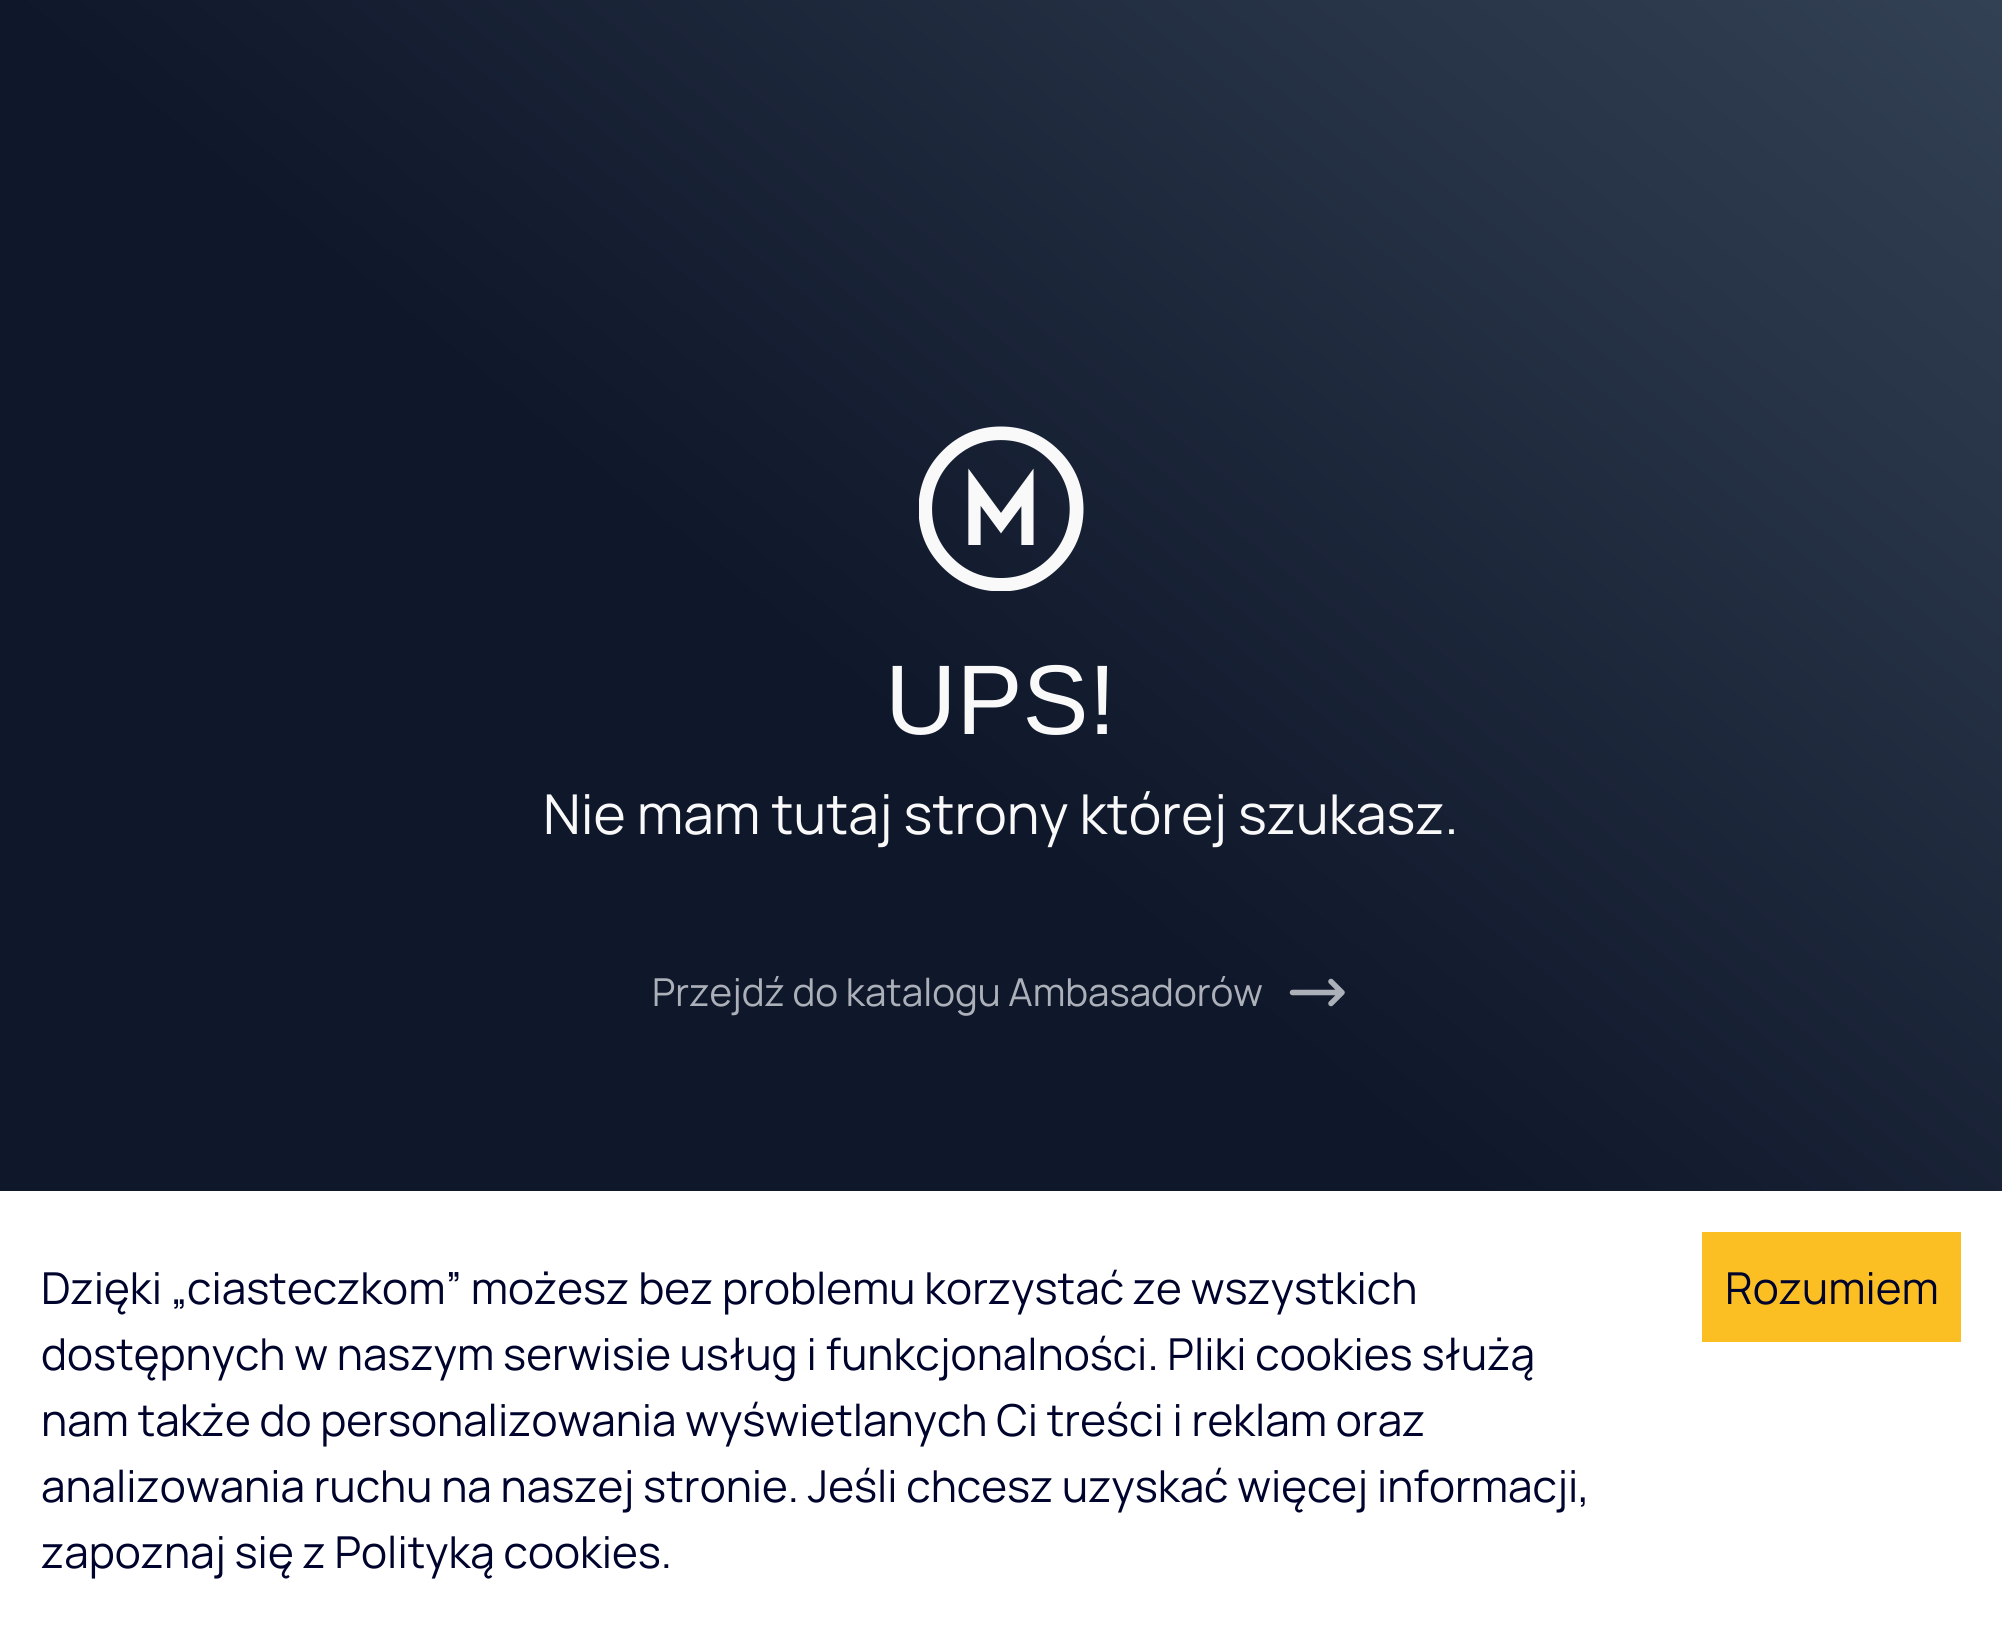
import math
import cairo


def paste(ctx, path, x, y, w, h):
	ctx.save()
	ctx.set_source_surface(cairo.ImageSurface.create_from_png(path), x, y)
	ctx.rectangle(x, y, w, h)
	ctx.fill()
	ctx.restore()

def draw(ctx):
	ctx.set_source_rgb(1, 1, 1)
	ctx.paint()
	gradient = cairo.LinearGradient(206, 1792, 1796, -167)
	gradient.add_color_stop_rgba(0, 0.059, 0.09, 0.165, 1)
	gradient.add_color_stop_rgba(0.5, 0.059, 0.09, 0.165, 1)
	gradient.add_color_stop_rgba(1, 0.2, 0.255, 0.333, 1)
	ctx.set_source(gradient)
	ctx.rectangle(0, 0, 2002, 1191)
	ctx.fill()
	paste(ctx, 'media/1.png', 919, 426, 165, 165)
	ctx.select_font_face('Liberation Sans')
	ctx.set_font_size(99)
	ctx.set_source_rgb(0.976, 0.976, 0.976)
	ctx.move_to(885, 734)
	ctx.show_text('UPS!')
	ctx.select_font_face('Manrope')
	ctx.set_font_size(55)
	ctx.move_to(543, 834)
	ctx.show_text('Nie mam tutaj strony której szukasz.')
	ctx.set_font_size(38.5)
	ctx.set_source_rgb(0.675, 0.69, 0.725)
	ctx.move_to(652, 1006)
	ctx.show_text('Przejdź do katalogu Ambasadorów')
	ctx.new_path()
	ctx.move_to(1331, 981.5)
	ctx.line_to(1342, 992.5)
	ctx.move_to(1342, 992.5)
	ctx.line_to(1331, 1003.5)
	ctx.move_to(1342, 992.5)
	ctx.line_to(1292.5, 992.5)
	ctx.set_source_rgb(0.675, 0.694, 0.725)
	ctx.set_line_width(5.5)
	ctx.set_line_cap(cairo.LINE_CAP_ROUND)
	ctx.set_line_join(cairo.LINE_JOIN_ROUND)
	ctx.stroke()
	ctx.set_font_size(44)
	ctx.set_source_rgb(0, 0.016, 0.176)
	for x, y, s in [
		(41, 1304, 'Dzięki „ciasteczkom” możesz bez problemu korzystać ze wszystkich'),
		(41, 1370, 'dostępnych w naszym serwisie usług i funkcjonalności. Pliki cookies służą'),
		(41, 1436, 'nam także do personalizowania wyświetlanych Ci treści i reklam oraz'),
		(41, 1502, 'analizowania ruchu na naszej stronie. Jeśli chcesz uzyskać więcej informacji,'),
		(41, 1568, 'zapoznaj się z Polityką cookies.'),
	]:
		ctx.move_to(x, y)
		ctx.show_text(s)
	ctx.set_source_rgb(0.984, 0.749, 0.141)
	ctx.rectangle(1702, 1232, 259, 110)
	ctx.fill()
	ctx.set_source_rgb(0, 0.016, 0.176)
	ctx.move_to(1725, 1304)
	ctx.show_text('Rozumiem')


surface = cairo.ImageSurface(cairo.FORMAT_RGB24, 2002, 1625)
ctx = cairo.Context(surface)
options = cairo.FontOptions()
options.set_hint_metrics(cairo.HINT_METRICS_OFF)
options.set_hint_style(cairo.HINT_STYLE_NONE)
ctx.set_font_options(options)
ctx.set_miter_limit(4)
draw(ctx)
surface.write_to_png('image.png')
